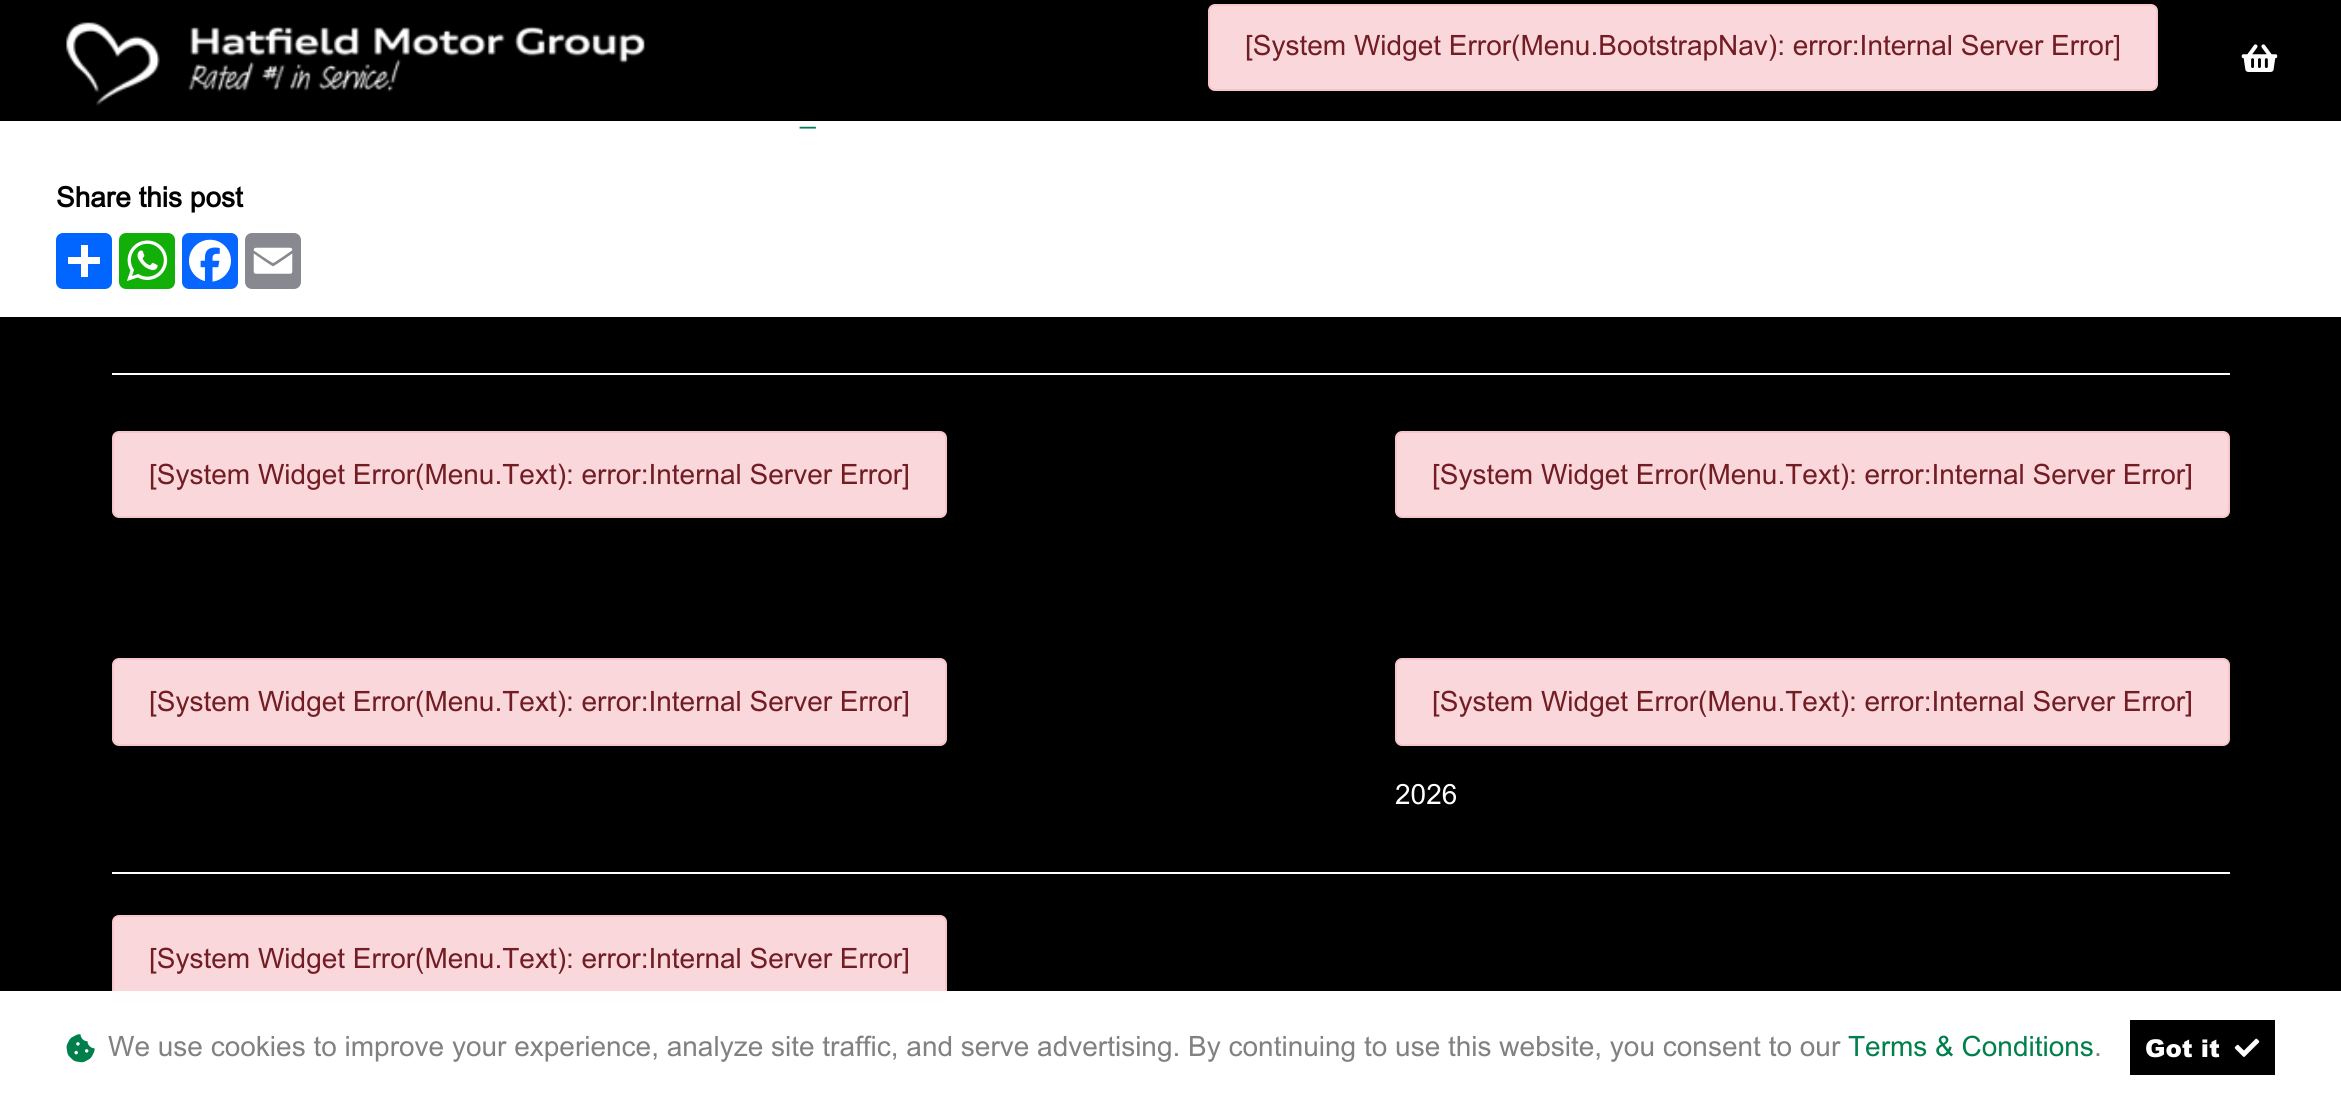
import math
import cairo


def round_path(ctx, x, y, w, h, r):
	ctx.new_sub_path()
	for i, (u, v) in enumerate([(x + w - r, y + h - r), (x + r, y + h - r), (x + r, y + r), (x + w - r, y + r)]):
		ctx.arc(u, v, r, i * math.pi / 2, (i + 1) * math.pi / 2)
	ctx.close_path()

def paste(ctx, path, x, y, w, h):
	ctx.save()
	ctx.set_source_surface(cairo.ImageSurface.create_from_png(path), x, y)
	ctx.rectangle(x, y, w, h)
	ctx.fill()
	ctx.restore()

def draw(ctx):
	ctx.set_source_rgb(1, 1, 1)
	ctx.paint()
	ctx.set_source_rgb(0, 0, 0)
	ctx.rectangle(0, 0, 2341, 121)
	ctx.fill()
	paste(ctx, 'media/1.png', 66, 22, 579, 84)
	ctx.set_source_rgb(0.973, 0.843, 0.855)
	round_path(ctx, 1209, 5, 948, 85, 6)
	ctx.fill_preserve()
	ctx.set_source_rgb(0.961, 0.776, 0.796)
	ctx.stroke()
	ctx.select_font_face('Arial')
	ctx.set_font_size(28)
	ctx.set_source_rgb(0.447, 0.11, 0.141)
	ctx.move_to(1245, 55)
	ctx.show_text('[System Widget Error(Menu.BootstrapNav): error:Internal Server Error]')
	paste(ctx, 'media/2.png', 2241, 44, 37, 28)
	ctx.set_source_rgb(0, 0.498, 0.298)
	ctx.move_to(800, 123)
	ctx.show_text('_')
	ctx.select_font_face('Arial', cairo.FONT_SLANT_NORMAL, cairo.FONT_WEIGHT_BOLD)
	ctx.set_source_rgb(0, 0, 0)
	ctx.move_to(56, 207)
	ctx.show_text('Share this post')
	ctx.set_source_rgb(0.004, 0.4, 1)
	round_path(ctx, 56, 233, 56, 56, 7)
	ctx.fill()
	ctx.set_source_rgb(1, 1, 1)
	ctx.rectangle(81, 245, 7, 32)
	ctx.fill()
	ctx.rectangle(68, 257, 32, 7)
	ctx.fill()
	ctx.set_source_rgb(0.071, 0.686, 0.039)
	round_path(ctx, 119, 233, 56, 56, 7)
	ctx.fill()
	paste(ctx, 'media/3.png', 127, 240, 41, 41)
	ctx.set_source_rgb(0.031, 0.4, 1)
	round_path(ctx, 182, 233, 56, 56, 7)
	ctx.fill()
	paste(ctx, 'media/4.png', 189, 239, 42, 43)
	ctx.set_source_rgb(0.533, 0.537, 0.565)
	round_path(ctx, 245, 233, 56, 56, 7)
	ctx.fill()
	paste(ctx, 'media/5.png', 253, 247, 40, 27)
	ctx.set_source_rgb(0, 0, 0)
	ctx.rectangle(0, 317, 2341, 674)
	ctx.fill()
	ctx.set_source_rgb(1, 1, 1)
	ctx.rectangle(112, 373, 2118, 2)
	ctx.rectangle(112, 872, 2118, 2)
	ctx.fill()
	ctx.set_source_rgb(0.973, 0.843, 0.855)
	round_path(ctx, 113, 432, 833, 85, 6)
	ctx.fill_preserve()
	ctx.set_source_rgb(0.961, 0.776, 0.796)
	ctx.stroke()
	ctx.select_font_face('Arial')
	ctx.set_source_rgb(0.447, 0.11, 0.141)
	ctx.move_to(149, 484)
	ctx.show_text('[System Widget Error(Menu.Text): error:Internal Server Error]')
	ctx.set_source_rgb(0.973, 0.843, 0.855)
	round_path(ctx, 1396, 432, 833, 85, 6)
	ctx.fill_preserve()
	ctx.set_source_rgb(0.961, 0.776, 0.796)
	ctx.stroke()
	ctx.set_source_rgb(0.447, 0.11, 0.141)
	ctx.move_to(1432, 484)
	ctx.show_text('[System Widget Error(Menu.Text): error:Internal Server Error]')
	ctx.set_source_rgb(0.973, 0.843, 0.855)
	round_path(ctx, 113, 659, 833, 86, 6)
	ctx.fill_preserve()
	ctx.set_source_rgb(0.961, 0.776, 0.796)
	ctx.stroke()
	ctx.set_source_rgb(0.447, 0.11, 0.141)
	ctx.move_to(149, 711)
	ctx.show_text('[System Widget Error(Menu.Text): error:Internal Server Error]')
	ctx.set_source_rgb(0.973, 0.843, 0.855)
	round_path(ctx, 1396, 659, 833, 86, 6)
	ctx.fill_preserve()
	ctx.set_source_rgb(0.961, 0.776, 0.796)
	ctx.stroke()
	ctx.set_source_rgb(0.447, 0.11, 0.141)
	ctx.move_to(1432, 711)
	ctx.show_text('[System Widget Error(Menu.Text): error:Internal Server Error]')
	ctx.set_source_rgb(1, 1, 1)
	ctx.move_to(1395, 804)
	ctx.show_text('2026')
	ctx.set_source_rgb(0.973, 0.843, 0.855)
	round_path(ctx, 113, 916, 833, 86, 6)
	ctx.fill_preserve()
	ctx.set_source_rgb(0.961, 0.776, 0.796)
	ctx.stroke()
	ctx.set_source_rgb(0.447, 0.11, 0.141)
	ctx.move_to(149, 968)
	ctx.show_text('[System Widget Error(Menu.Text): error:Internal Server Error]')
	ctx.set_source_rgb(0.996, 0.996, 0.996)
	ctx.rectangle(112, 991, 835, 12)
	ctx.fill()
	paste(ctx, 'media/6.png', 66, 1034, 29, 29)
	ctx.set_source_rgb(0.506, 0.506, 0.51)
	ctx.move_to(108, 1056)
	ctx.show_text('We use cookies to improve your experience, analyze site traffic, and serve advertising. By continuing to use this website, you consent to our')
	ctx.set_source_rgb(0, 0.498, 0.298)
	ctx.move_to(1848, 1056)
	ctx.show_text('Terms & Conditions')
	ctx.set_source_rgb(0.506, 0.506, 0.51)
	ctx.move_to(2094, 1056)
	ctx.show_text('.')
	ctx.set_source_rgb(0, 0, 0)
	ctx.rectangle(2130, 1020, 145, 55)
	ctx.fill()
	ctx.select_font_face('Arial Black')
	ctx.set_font_size(24.5)
	ctx.set_source_rgb(1, 1, 1)
	ctx.move_to(2145, 1057)
	ctx.show_text('Got it')
	paste(ctx, 'media/7.png', 2234, 1038, 26, 19)


surface = cairo.ImageSurface(cairo.FORMAT_RGB24, 2341, 1104)
ctx = cairo.Context(surface)
options = cairo.FontOptions()
options.set_hint_metrics(cairo.HINT_METRICS_OFF)
options.set_hint_style(cairo.HINT_STYLE_NONE)
ctx.set_font_options(options)
ctx.set_miter_limit(4)
draw(ctx)
surface.write_to_png('image.png')
